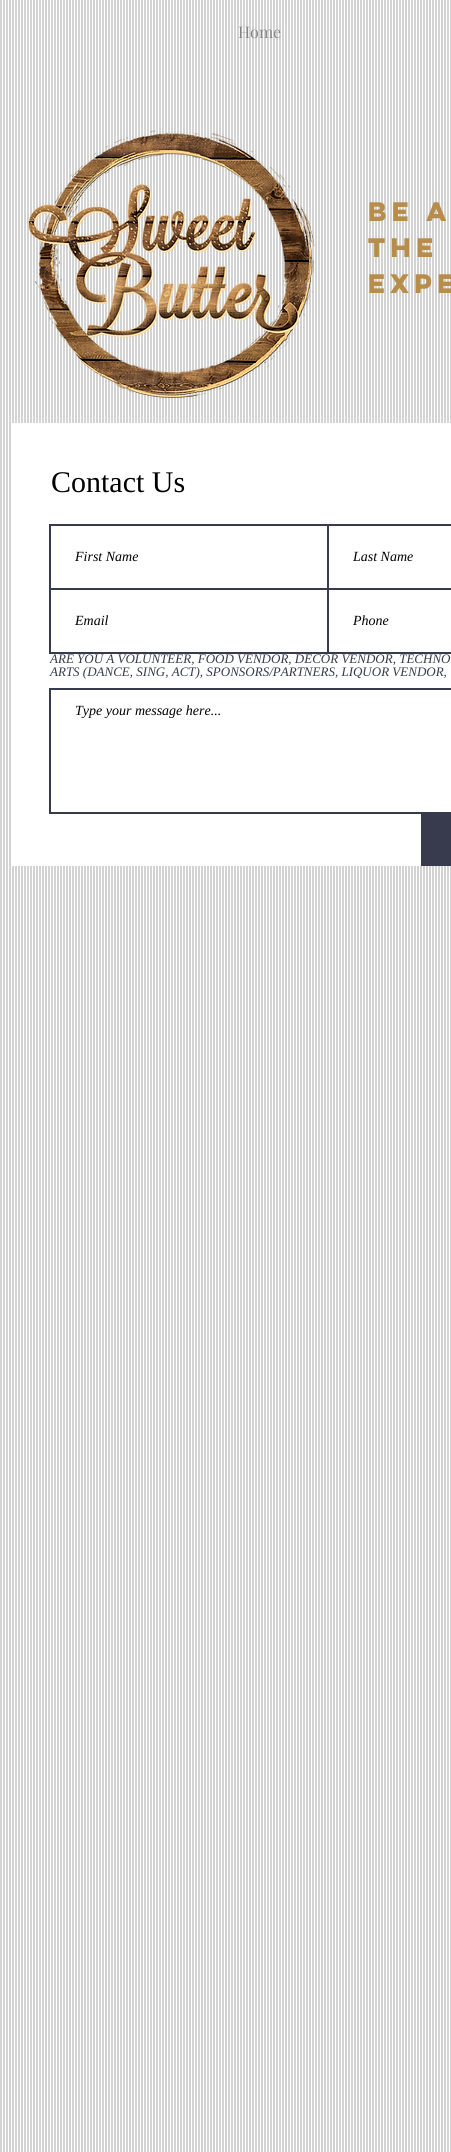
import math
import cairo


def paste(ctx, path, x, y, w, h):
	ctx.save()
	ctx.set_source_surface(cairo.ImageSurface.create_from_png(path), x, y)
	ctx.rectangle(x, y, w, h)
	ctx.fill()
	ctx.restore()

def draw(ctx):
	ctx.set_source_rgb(1, 1, 1)
	ctx.paint()
	paste(ctx, 'media/1.png', 0, 0, 451, 2152)
	ctx.select_font_face('Playfair Display')
	ctx.set_font_size(16)
	ctx.set_source_rgb(0.522, 0.522, 0.522)
	ctx.move_to(238, 38)
	ctx.show_text('Home')
	paste(ctx, 'media/2.png', 28, 130, 287, 268)
	ctx.select_font_face('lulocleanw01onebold', cairo.FONT_SLANT_NORMAL, cairo.FONT_WEIGHT_BOLD)
	ctx.set_font_size(24)
	ctx.set_source_rgb(0.722, 0.549, 0.294)
	for x, y, s in [
		(368, 221, 'Be a'),
		(368, 257, 'the'),
		(368, 293, 'expe'),
	]:
		ctx.move_to(x, y)
		ctx.show_text(s)
	ctx.set_source_rgb(1, 1, 1)
	ctx.rectangle(12, 423, 439, 443)
	ctx.fill()
	ctx.select_font_face('Liberation Serif')
	ctx.set_font_size(30)
	ctx.set_source_rgb(0, 0, 0)
	ctx.move_to(51, 492)
	ctx.show_text('Contact Us')
	ctx.rectangle(50, 525, 278, 64)
	ctx.set_source_rgb(0.216, 0.231, 0.302)
	ctx.stroke()
	ctx.select_font_face('Liberation Serif', cairo.FONT_SLANT_ITALIC)
	ctx.set_font_size(14)
	ctx.set_source_rgb(0, 0, 0)
	ctx.move_to(75, 561)
	ctx.show_text('First Name')
	ctx.rectangle(328, 525, 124, 64)
	ctx.set_source_rgb(0.216, 0.231, 0.302)
	ctx.stroke()
	ctx.set_source_rgb(0, 0, 0)
	ctx.move_to(353, 561)
	ctx.show_text('Last Name')
	ctx.rectangle(50, 589, 278, 64)
	ctx.set_source_rgb(0.216, 0.231, 0.302)
	ctx.stroke()
	ctx.set_source_rgb(0, 0, 0)
	ctx.move_to(75, 625)
	ctx.show_text('Email')
	ctx.rectangle(328, 589, 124, 64)
	ctx.set_source_rgb(0.216, 0.231, 0.302)
	ctx.stroke()
	ctx.set_source_rgb(0, 0, 0)
	ctx.move_to(353, 625)
	ctx.show_text('Phone')
	ctx.set_font_size(13)
	ctx.set_source_rgb(0.216, 0.231, 0.302)
	ctx.move_to(50, 663)
	ctx.show_text('ARE YOU A VOLUNTEER, FOOD VENDOR, DECOR VENDOR, TECHNO')
	ctx.move_to(50, 676)
	ctx.show_text('ARTS (DANCE, SING, ACT), SPONSORS/PARTNERS, LIQUOR VENDOR,')
	ctx.rectangle(50, 689, 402, 124)
	ctx.stroke()
	ctx.set_font_size(14)
	ctx.set_source_rgb(0, 0, 0)
	ctx.move_to(75, 715)
	ctx.show_text('Type your message here...')
	ctx.set_source_rgb(0.216, 0.231, 0.302)
	ctx.rectangle(421, 814, 30, 52)
	ctx.fill()


surface = cairo.ImageSurface(cairo.FORMAT_RGB24, 451, 2152)
ctx = cairo.Context(surface)
options = cairo.FontOptions()
options.set_hint_metrics(cairo.HINT_METRICS_OFF)
options.set_hint_style(cairo.HINT_STYLE_NONE)
ctx.set_font_options(options)
ctx.set_miter_limit(4)
draw(ctx)
surface.write_to_png('image.png')
